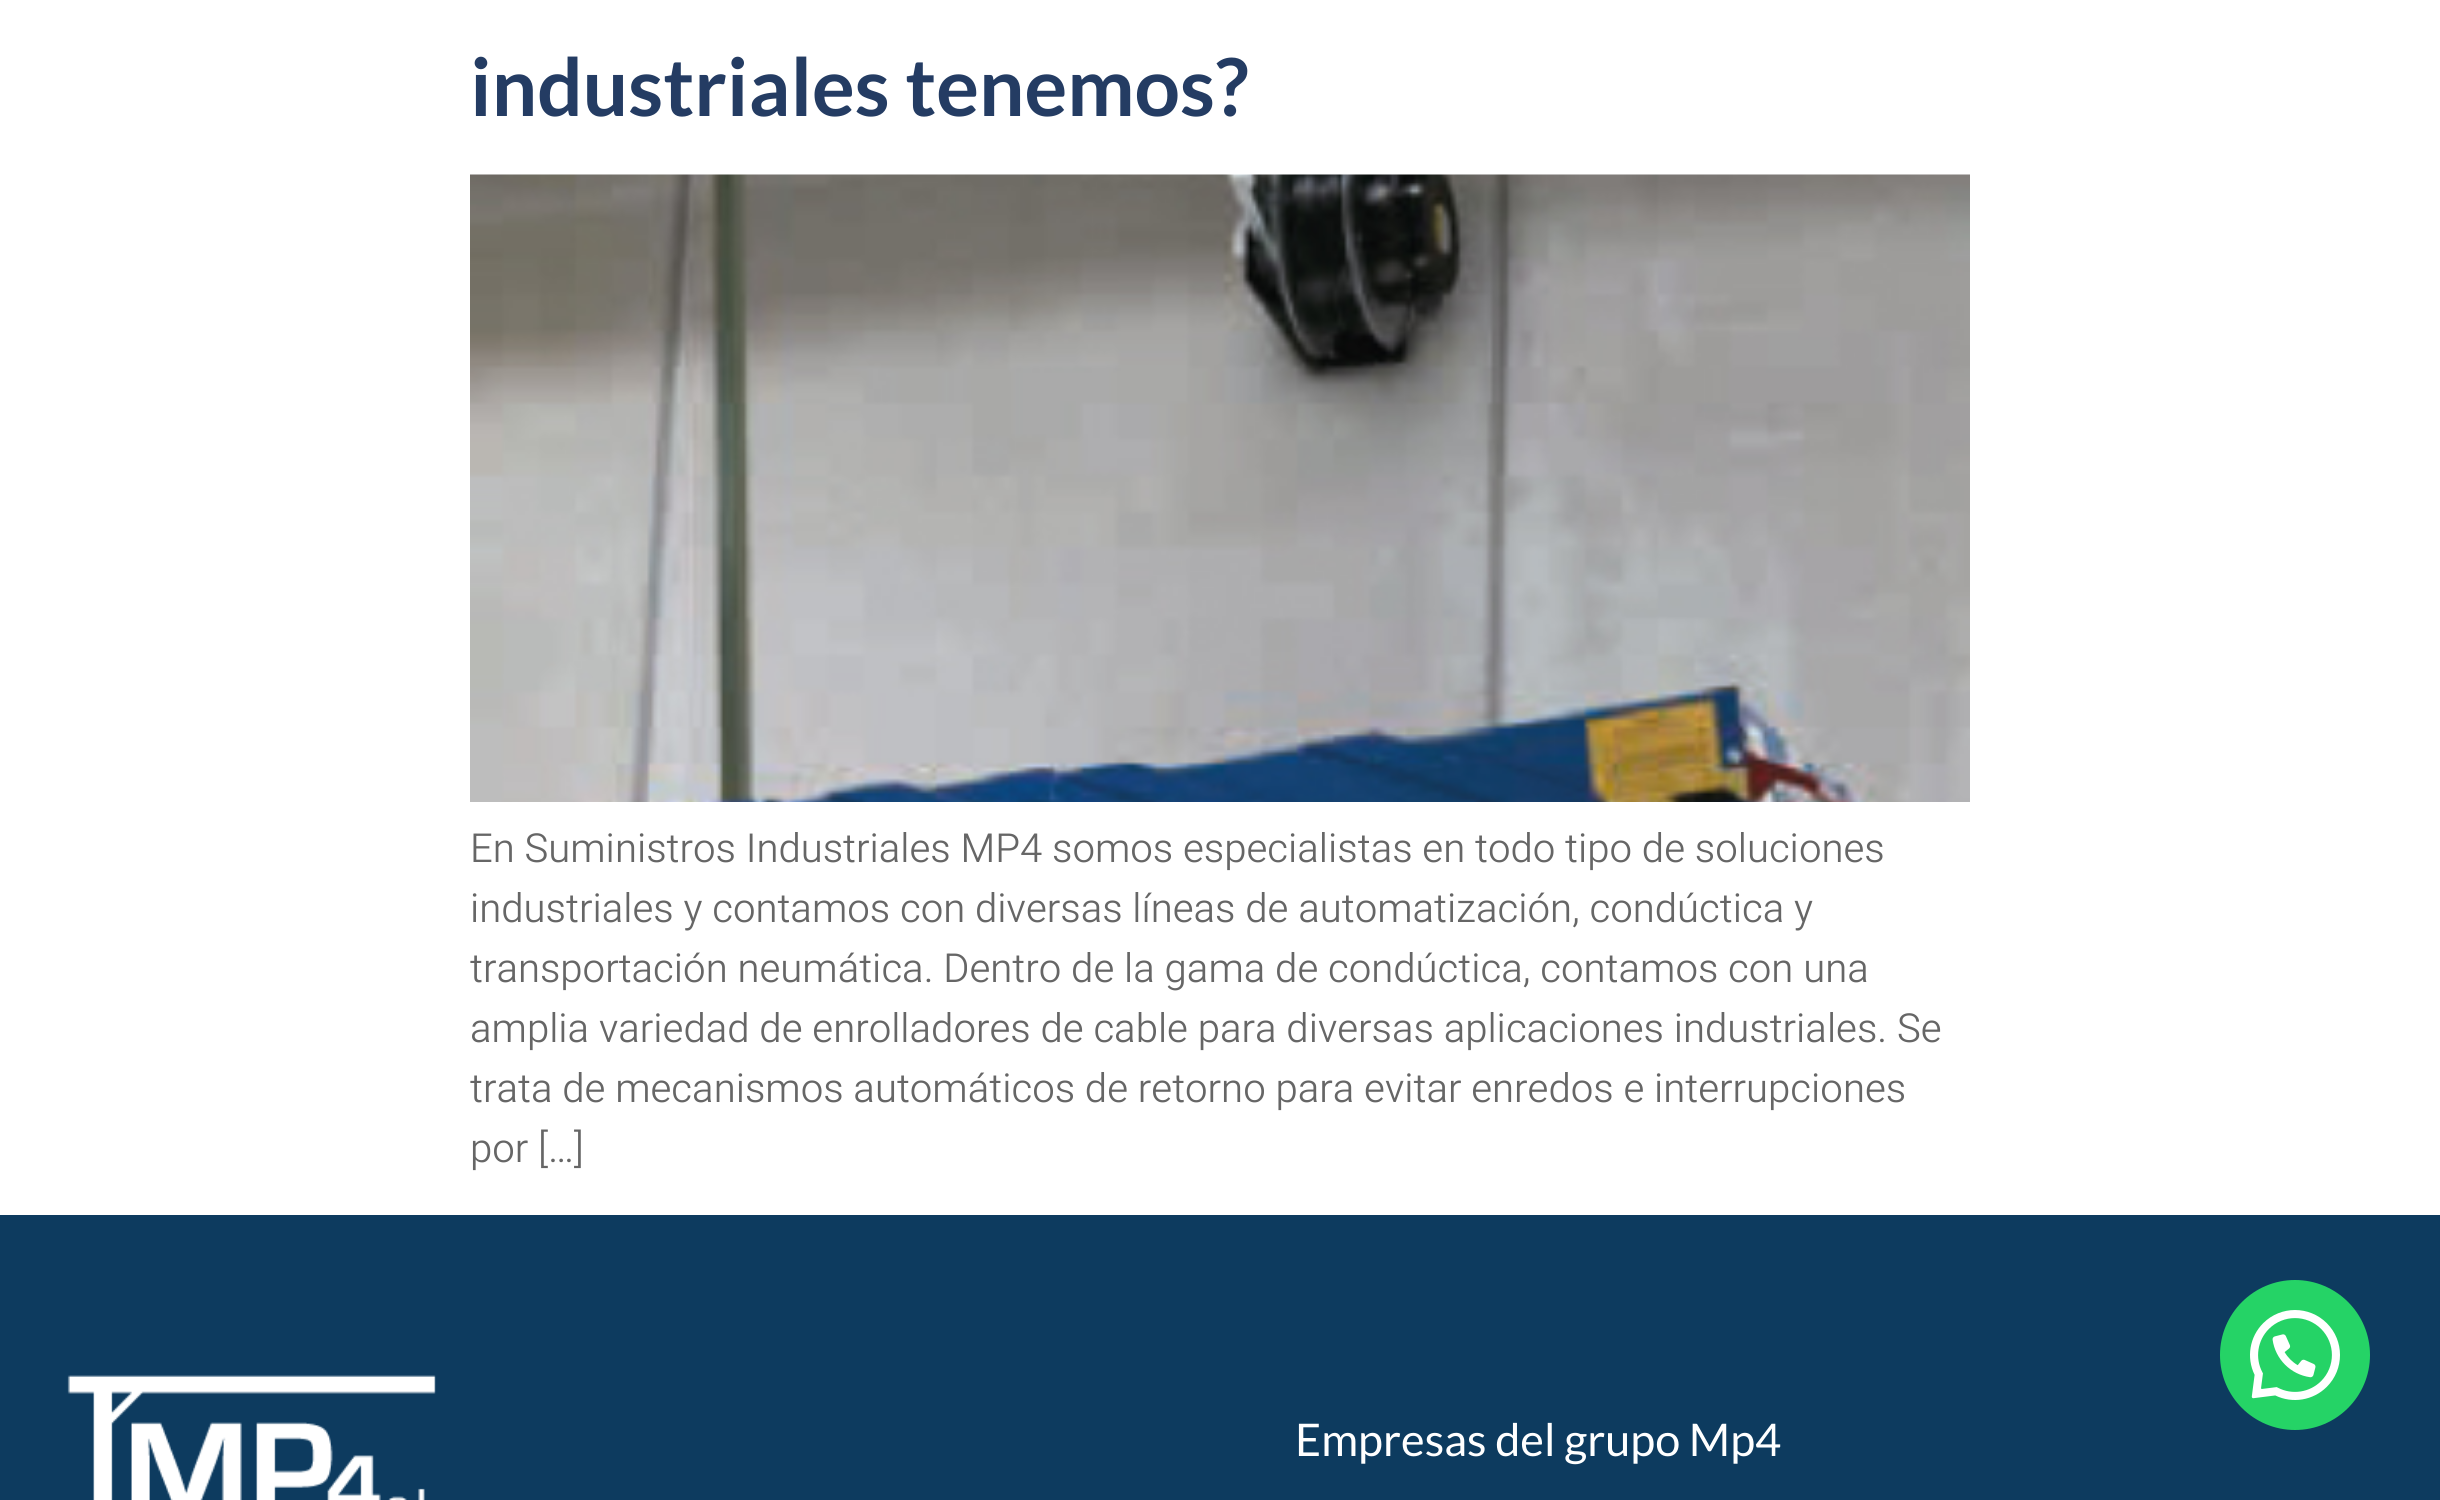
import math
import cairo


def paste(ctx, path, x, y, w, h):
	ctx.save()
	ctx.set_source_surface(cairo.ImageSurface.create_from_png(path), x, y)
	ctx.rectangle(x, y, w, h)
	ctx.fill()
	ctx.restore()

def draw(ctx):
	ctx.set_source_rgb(1, 1, 1)
	ctx.paint()
	ctx.select_font_face('Lato', cairo.FONT_SLANT_NORMAL, cairo.FONT_WEIGHT_BOLD)
	ctx.set_font_size(80)
	ctx.set_source_rgb(0.141, 0.235, 0.388)
	ctx.move_to(470, 116)
	ctx.show_text('industriales tenemos?')
	paste(ctx, 'media/1.png', 470, 174, 1500, 628)
	ctx.select_font_face('Heebo Light')
	ctx.set_font_size(40)
	ctx.set_source_rgb(0.4, 0.4, 0.4)
	for x, y, s in [
		(470, 862, 'En Suministros Industriales MP4 somos especialistas en todo tipo de soluciones'),
		(470, 922, 'industriales y contamos con diversas líneas de automatización, condúctica y'),
		(470, 982, 'transportación neumática. Dentro de la gama de condúctica, contamos con una'),
		(470, 1042, 'amplia variedad de enrolladores de cable para diversas aplicaciones industriales. Se'),
		(470, 1102, 'trata de mecanismos automáticos de retorno para evitar enredos e interrupciones'),
		(470, 1162, 'por […]'),
	]:
		ctx.move_to(x, y)
		ctx.show_text(s)
	ctx.set_source_rgb(0.051, 0.231, 0.373)
	ctx.rectangle(0, 1215, 2440, 285)
	ctx.fill()
	ctx.set_source_rgb(0.145, 0.827, 0.4)
	ctx.arc(2295, 1355, 75, 0, 2 * math.pi)
	ctx.fill()
	paste(ctx, 'media/2.png', 2250, 1310, 90, 90)
	paste(ctx, 'media/3.png', 67, 1375, 369, 125)
	ctx.select_font_face('Lato')
	ctx.set_font_size(45)
	ctx.set_source_rgb(1, 1, 1)
	ctx.move_to(1295, 1456)
	ctx.show_text('Empresas del grupo Mp4')


surface = cairo.ImageSurface(cairo.FORMAT_RGB24, 2440, 1500)
ctx = cairo.Context(surface)
options = cairo.FontOptions()
options.set_hint_metrics(cairo.HINT_METRICS_OFF)
options.set_hint_style(cairo.HINT_STYLE_NONE)
ctx.set_font_options(options)
ctx.set_miter_limit(4)
draw(ctx)
surface.write_to_png('image.png')
